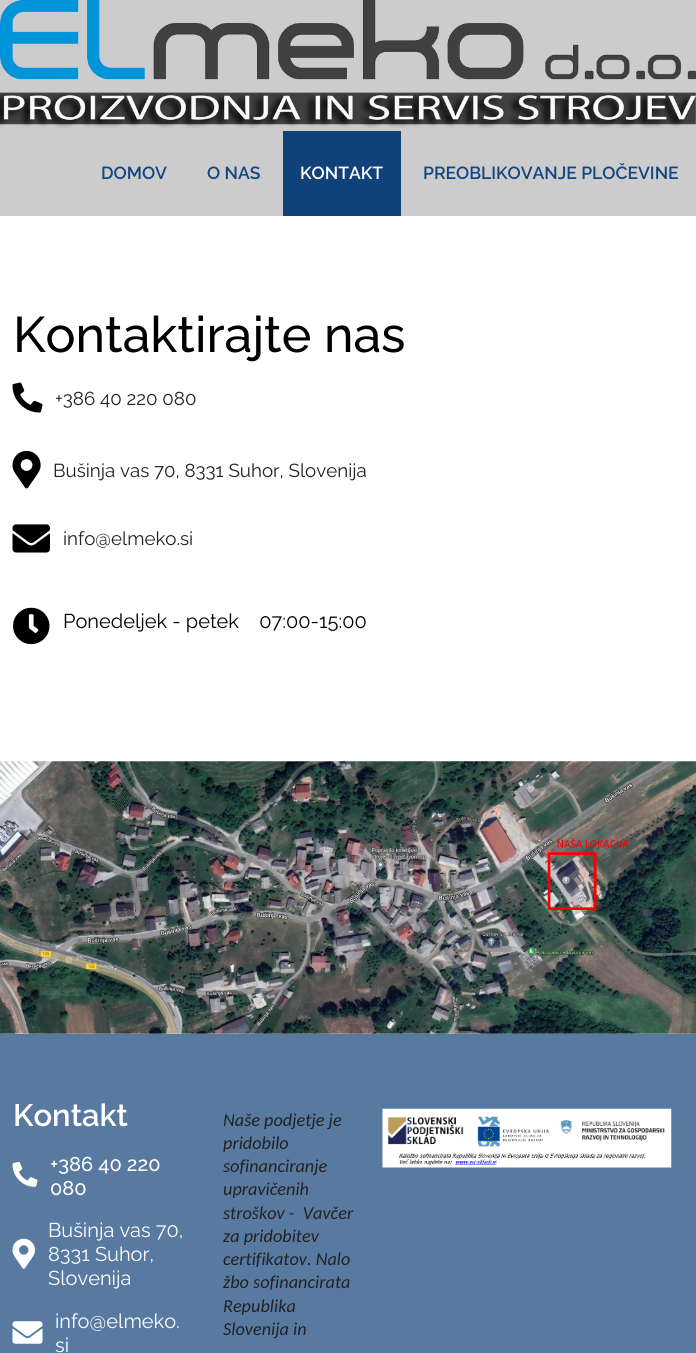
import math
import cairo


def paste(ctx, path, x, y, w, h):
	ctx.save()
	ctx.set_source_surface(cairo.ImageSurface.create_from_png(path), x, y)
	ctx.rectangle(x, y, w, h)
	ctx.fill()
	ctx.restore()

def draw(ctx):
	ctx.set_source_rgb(1, 1, 1)
	ctx.paint()
	ctx.set_source_rgb(0.8, 0.8, 0.8)
	ctx.rectangle(0, 0, 696, 216)
	ctx.fill()
	paste(ctx, 'media/1.png', 0, 0, 696, 128)
	ctx.select_font_face('Raleway SemiBold')
	ctx.set_font_size(17.5)
	ctx.set_source_rgb(0.067, 0.271, 0.506)
	ctx.move_to(101, 179)
	ctx.show_text('DOMOV')
	ctx.move_to(207, 179)
	ctx.show_text('O NAS')
	ctx.set_source_rgb(0.063, 0.255, 0.475)
	ctx.rectangle(283, 131, 118, 85)
	ctx.fill()
	ctx.set_source_rgb(1, 1, 1)
	ctx.move_to(300, 179)
	ctx.show_text('KONTAKT')
	ctx.set_source_rgb(0.067, 0.271, 0.506)
	ctx.move_to(423, 179)
	ctx.show_text('PREOBLIKOVANJE PLOČEVINE')
	ctx.select_font_face('Raleway Medium')
	ctx.set_font_size(50)
	ctx.set_source_rgb(0, 0, 0)
	ctx.move_to(13, 352)
	ctx.show_text('Kontaktirajte nas')
	paste(ctx, 'media/2.png', 12, 382, 31, 31)
	ctx.select_font_face('Raleway')
	ctx.set_font_size(18.75)
	ctx.set_source_rgb(0.133, 0.133, 0.133)
	ctx.move_to(55, 405)
	ctx.show_text('+386 40 220 080')
	paste(ctx, 'media/3.png', 12, 450, 29, 39)
	ctx.move_to(53, 477)
	ctx.show_text('Bušinja vas 70, 8331 Suhor, Slovenija')
	paste(ctx, 'media/4.png', 12, 524, 38, 29)
	ctx.move_to(63, 545)
	ctx.show_text('info@elmeko.si')
	paste(ctx, 'media/5.png', 13, 607, 37, 38)
	ctx.set_font_size(20)
	ctx.set_source_rgb(0, 0, 0)
	ctx.move_to(63, 628)
	ctx.show_text('Ponedeljek - petek    07:00-15:00')
	paste(ctx, 'media/6.png', 0, 761, 696, 273)
	ctx.set_source_rgb(0.345, 0.478, 0.631)
	ctx.rectangle(0, 1034, 696, 319)
	ctx.fill()
	ctx.select_font_face('Raleway SemiBold')
	ctx.set_font_size(31)
	ctx.set_source_rgb(1, 1, 1)
	ctx.move_to(13, 1126)
	ctx.show_text('Kontakt')
	paste(ctx, 'media/7.png', 12, 1161, 26, 26)
	ctx.select_font_face('Raleway Medium')
	ctx.set_font_size(20)
	ctx.move_to(50, 1171)
	ctx.show_text('+386 40 220')
	ctx.move_to(50, 1195)
	ctx.show_text('080')
	paste(ctx, 'media/8.png', 12, 1238, 23, 31)
	ctx.select_font_face('Raleway')
	for x, y, s in [
		(48, 1237, 'Bušinja vas 70,'),
		(48, 1261, '8331 Suhor,'),
		(48, 1285, 'Slovenija'),
	]:
		ctx.move_to(x, y)
		ctx.show_text(s)
	paste(ctx, 'media/9.png', 12, 1321, 31, 23)
	ctx.move_to(55, 1328)
	ctx.show_text('info@elmeko.')
	ctx.move_to(55, 1352)
	ctx.show_text('si')
	ctx.select_font_face('Carlito', cairo.FONT_SLANT_ITALIC)
	ctx.set_font_size(18.25)
	ctx.set_source_rgb(0.133, 0.133, 0.133)
	for x, y, s in [
		(223, 1126, 'Naše podjetje je'),
		(223, 1149, 'pridobilo'),
		(223, 1172, 'sofinanciranje'),
		(223, 1195, 'upravičenih'),
		(223, 1219, 'stroškov -  Vavčer'),
		(223, 1242, 'za pridobitev'),
		(223, 1265, 'certifikatov. Nalo'),
		(223, 1288, 'žbo sofinancirata'),
		(223, 1312, 'Republika'),
		(223, 1335, 'Slovenija in'),
	]:
		ctx.move_to(x, y)
		ctx.show_text(s)
	paste(ctx, 'media/10.png', 382, 1108, 290, 60)


surface = cairo.ImageSurface(cairo.FORMAT_RGB24, 696, 1353)
ctx = cairo.Context(surface)
options = cairo.FontOptions()
options.set_hint_metrics(cairo.HINT_METRICS_OFF)
options.set_hint_style(cairo.HINT_STYLE_NONE)
ctx.set_font_options(options)
ctx.set_miter_limit(4)
draw(ctx)
surface.write_to_png('image.png')
